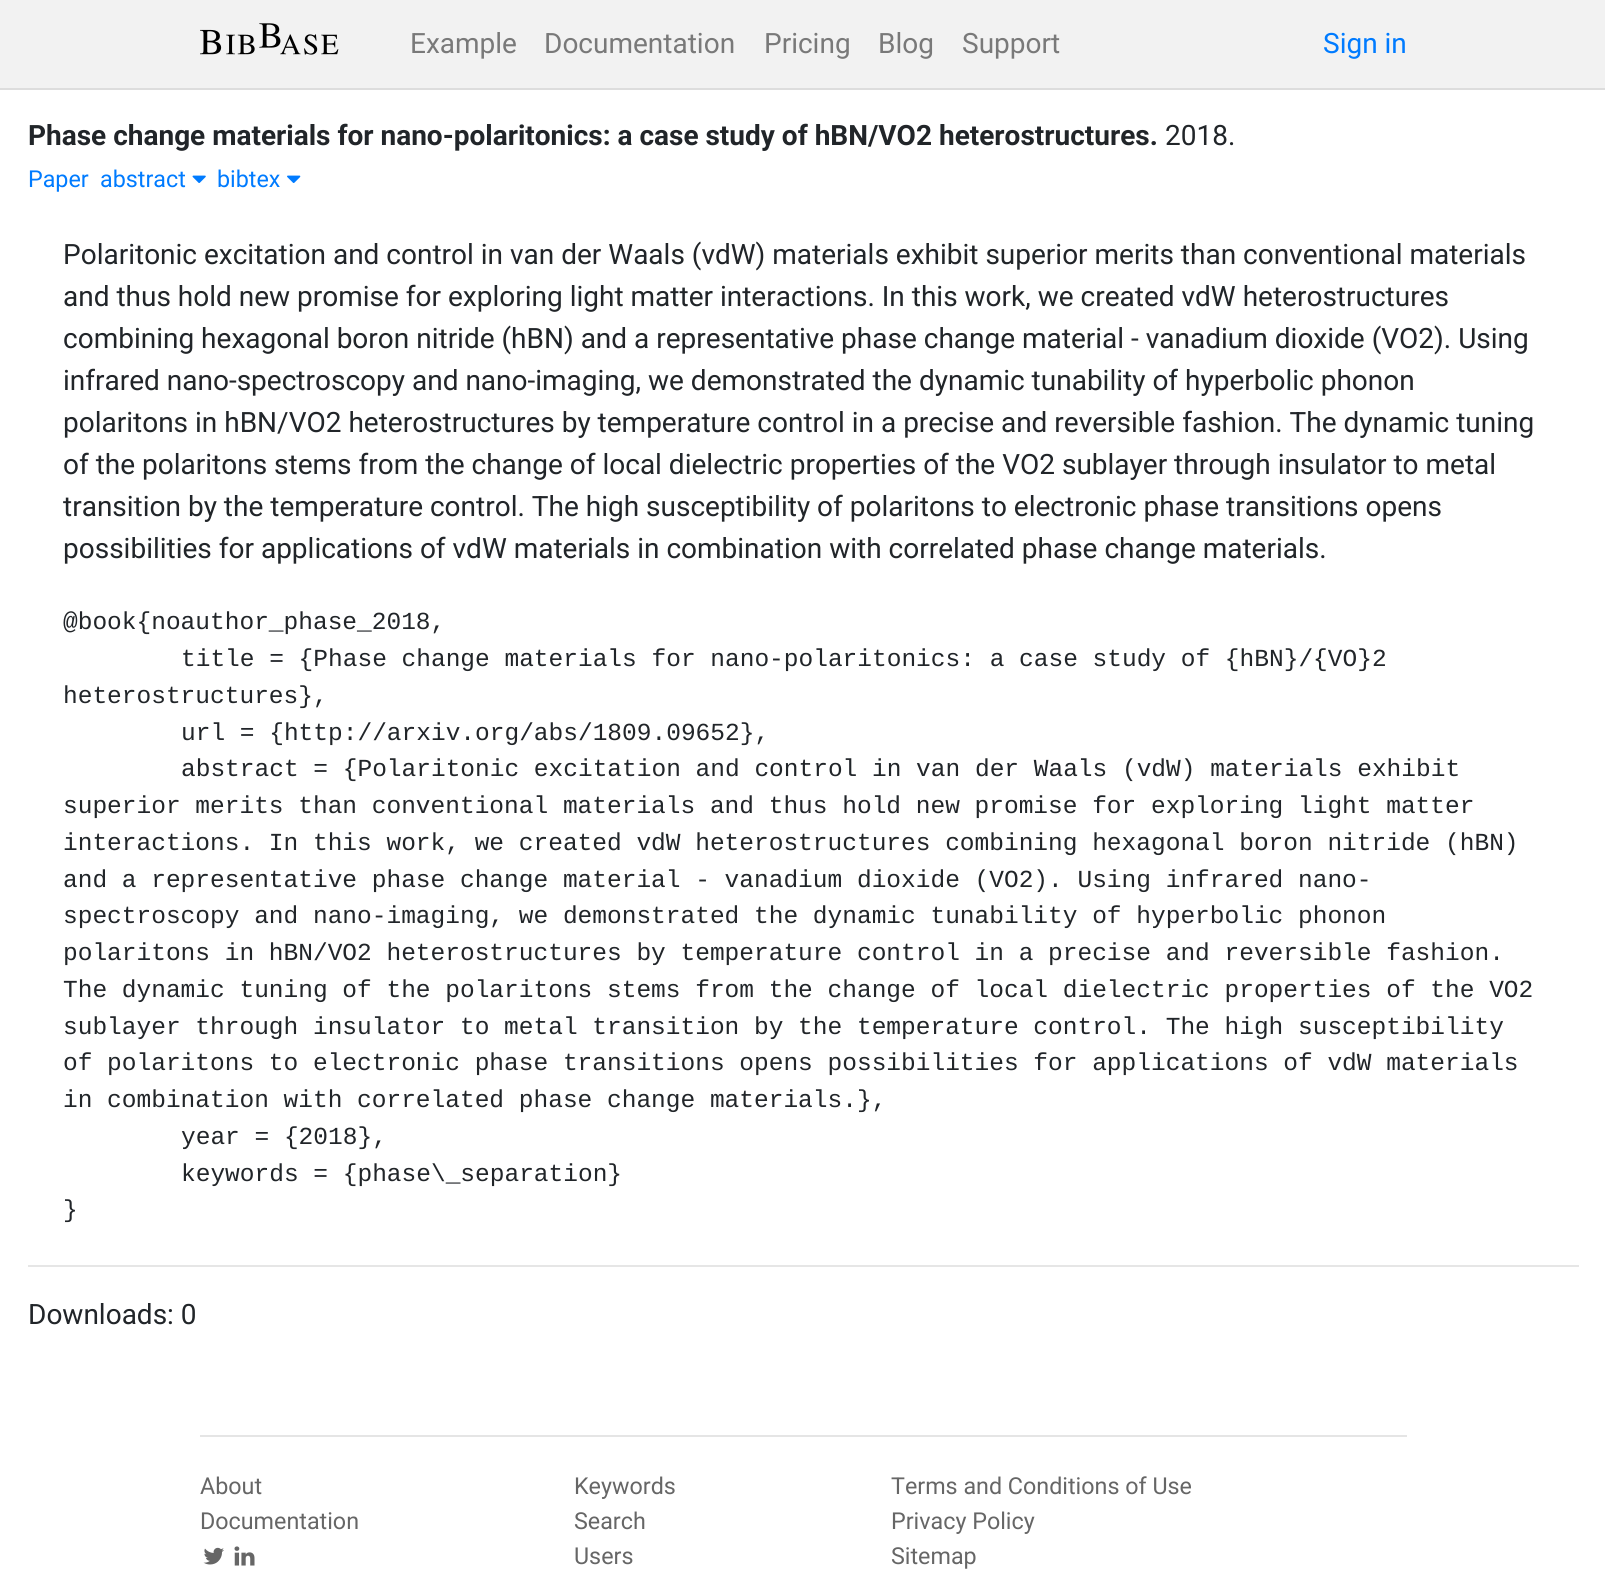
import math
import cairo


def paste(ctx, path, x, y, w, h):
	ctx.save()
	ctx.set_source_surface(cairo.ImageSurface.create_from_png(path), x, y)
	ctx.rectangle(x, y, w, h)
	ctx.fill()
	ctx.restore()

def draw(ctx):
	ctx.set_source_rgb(1, 1, 1)
	ctx.paint()
	ctx.set_source_rgb(0.949, 0.949, 0.949)
	ctx.rectangle(0, 0, 1605, 88)
	ctx.fill()
	ctx.set_source_rgb(0.867, 0.867, 0.867)
	ctx.rectangle(0, 88, 1605, 2)
	ctx.fill()
	paste(ctx, 'media/1.png', 200, 23, 139, 32)
	ctx.select_font_face('Roboto')
	ctx.set_font_size(28)
	ctx.set_source_rgb(0.475, 0.475, 0.475)
	for x, y, s in [
		(410, 53, 'Example'),
		(544, 53, 'Documentation'),
		(764, 53, 'Pricing'),
		(878, 53, 'Blog'),
		(962, 53, 'Support'),
	]:
		ctx.move_to(x, y)
		ctx.show_text(s)
	ctx.set_source_rgb(0, 0.482, 1)
	ctx.move_to(1323, 53)
	ctx.show_text('Sign in')
	ctx.select_font_face('Roboto', cairo.FONT_SLANT_NORMAL, cairo.FONT_WEIGHT_BOLD)
	ctx.set_source_rgb(0.129, 0.145, 0.161)
	ctx.move_to(28, 145)
	ctx.show_text('Phase change materials for nano-polaritonics: a case study of hBN/VO2 heterostructures.')
	ctx.select_font_face('Roboto')
	ctx.move_to(1165, 145)
	ctx.show_text('2018.')
	ctx.set_font_size(23.3)
	ctx.set_source_rgb(0, 0.482, 1)
	ctx.move_to(28, 187)
	ctx.show_text('Paper')
	ctx.move_to(100, 187)
	ctx.show_text('abstract')
	paste(ctx, 'media/2.png', 192, 175, 14, 8)
	ctx.move_to(217, 187)
	ctx.show_text('bibtex')
	paste(ctx, 'media/3.png', 287, 175, 14, 8)
	ctx.set_font_size(28)
	ctx.set_source_rgb(0.129, 0.145, 0.161)
	for x, y, s in [
		(63, 264, 'Polaritonic excitation and control in van der Waals (vdW) materials exhibit superior merits than conventional materials'),
		(63, 306, 'and thus hold new promise for exploring light matter interactions. In this work, we created vdW heterostructures'),
		(63, 348, 'combining hexagonal boron nitride (hBN) and a representative phase change material - vanadium dioxide (VO2). Using'),
		(63, 390, 'infrared nano-spectroscopy and nano-imaging, we demonstrated the dynamic tunability of hyperbolic phonon'),
		(63, 432, 'polaritons in hBN/VO2 heterostructures by temperature control in a precise and reversible fashion. The dynamic tuning'),
		(63, 474, 'of the polaritons stems from the change of local dielectric properties of the VO2 sublayer through insulator to metal'),
		(63, 516, 'transition by the temperature control. The high susceptibility of polaritons to electronic phase transitions opens'),
		(63, 558, 'possibilities for applications of vdW materials in combination with correlated phase change materials.'),
	]:
		ctx.move_to(x, y)
		ctx.show_text(s)
	ctx.select_font_face('Liberation Mono')
	ctx.set_font_size(24.5)
	for x, y, s in [
		(63, 629, '@book{noauthor_phase_2018,'),
		(181, 666, 'title = {Phase change materials for nano-polaritonics: a case study of {hBN}/{VO}2'),
		(63, 703, 'heterostructures},'),
		(181, 740, 'url = {http://arxiv.org/abs/1809.09652},'),
		(181, 776, 'abstract = {Polaritonic excitation and control in van der Waals (vdW) materials exhibit'),
		(63, 813, 'superior merits than conventional materials and thus hold new promise for exploring light matter'),
		(63, 850, 'interactions. In this work, we created vdW heterostructures combining hexagonal boron nitride (hBN)'),
		(63, 887, 'and a representative phase change material - vanadium dioxide (VO2). Using infrared nano-'),
		(63, 923, 'spectroscopy and nano-imaging, we demonstrated the dynamic tunability of hyperbolic phonon'),
		(63, 960, 'polaritons in hBN/VO2 heterostructures by temperature control in a precise and reversible fashion.'),
		(63, 997, 'The dynamic tuning of the polaritons stems from the change of local dielectric properties of the VO2'),
		(63, 1034, 'sublayer through insulator to metal transition by the temperature control. The high susceptibility'),
		(63, 1070, 'of polaritons to electronic phase transitions opens possibilities for applications of vdW materials'),
		(63, 1107, 'in combination with correlated phase change materials.},'),
		(181, 1144, 'year = {2018},'),
		(181, 1181, 'keywords = {phase\\_separation}'),
		(63, 1217, '}'),
	]:
		ctx.move_to(x, y)
		ctx.show_text(s)
	ctx.set_source_rgb(0.902, 0.902, 0.902)
	ctx.rectangle(28, 1265, 1551, 2)
	ctx.fill()
	ctx.select_font_face('Roboto')
	ctx.set_font_size(28)
	ctx.set_source_rgb(0.129, 0.145, 0.161)
	ctx.move_to(28, 1324)
	ctx.show_text('Downloads: 0')
	ctx.set_source_rgb(0.898, 0.898, 0.898)
	ctx.rectangle(200, 1435, 1207, 2)
	ctx.fill()
	ctx.set_font_size(23.3)
	ctx.set_source_rgb(0.4, 0.4, 0.4)
	ctx.move_to(200, 1494)
	ctx.show_text('About')
	ctx.move_to(200, 1529)
	ctx.show_text('Documentation')
	paste(ctx, 'media/4.png', 203, 1547, 21, 18)
	paste(ctx, 'media/5.png', 234, 1546, 21, 20)
	for x, y, s in [
		(574, 1494, 'Keywords'),
		(574, 1529, 'Search'),
		(574, 1564, 'Users'),
		(891, 1494, 'Terms and Conditions of Use'),
		(891, 1529, 'Privacy Policy'),
		(891, 1564, 'Sitemap'),
	]:
		ctx.move_to(x, y)
		ctx.show_text(s)


surface = cairo.ImageSurface(cairo.FORMAT_RGB24, 1605, 1588)
ctx = cairo.Context(surface)
options = cairo.FontOptions()
options.set_hint_metrics(cairo.HINT_METRICS_OFF)
options.set_hint_style(cairo.HINT_STYLE_NONE)
ctx.set_font_options(options)
ctx.set_miter_limit(4)
draw(ctx)
surface.write_to_png('image.png')
